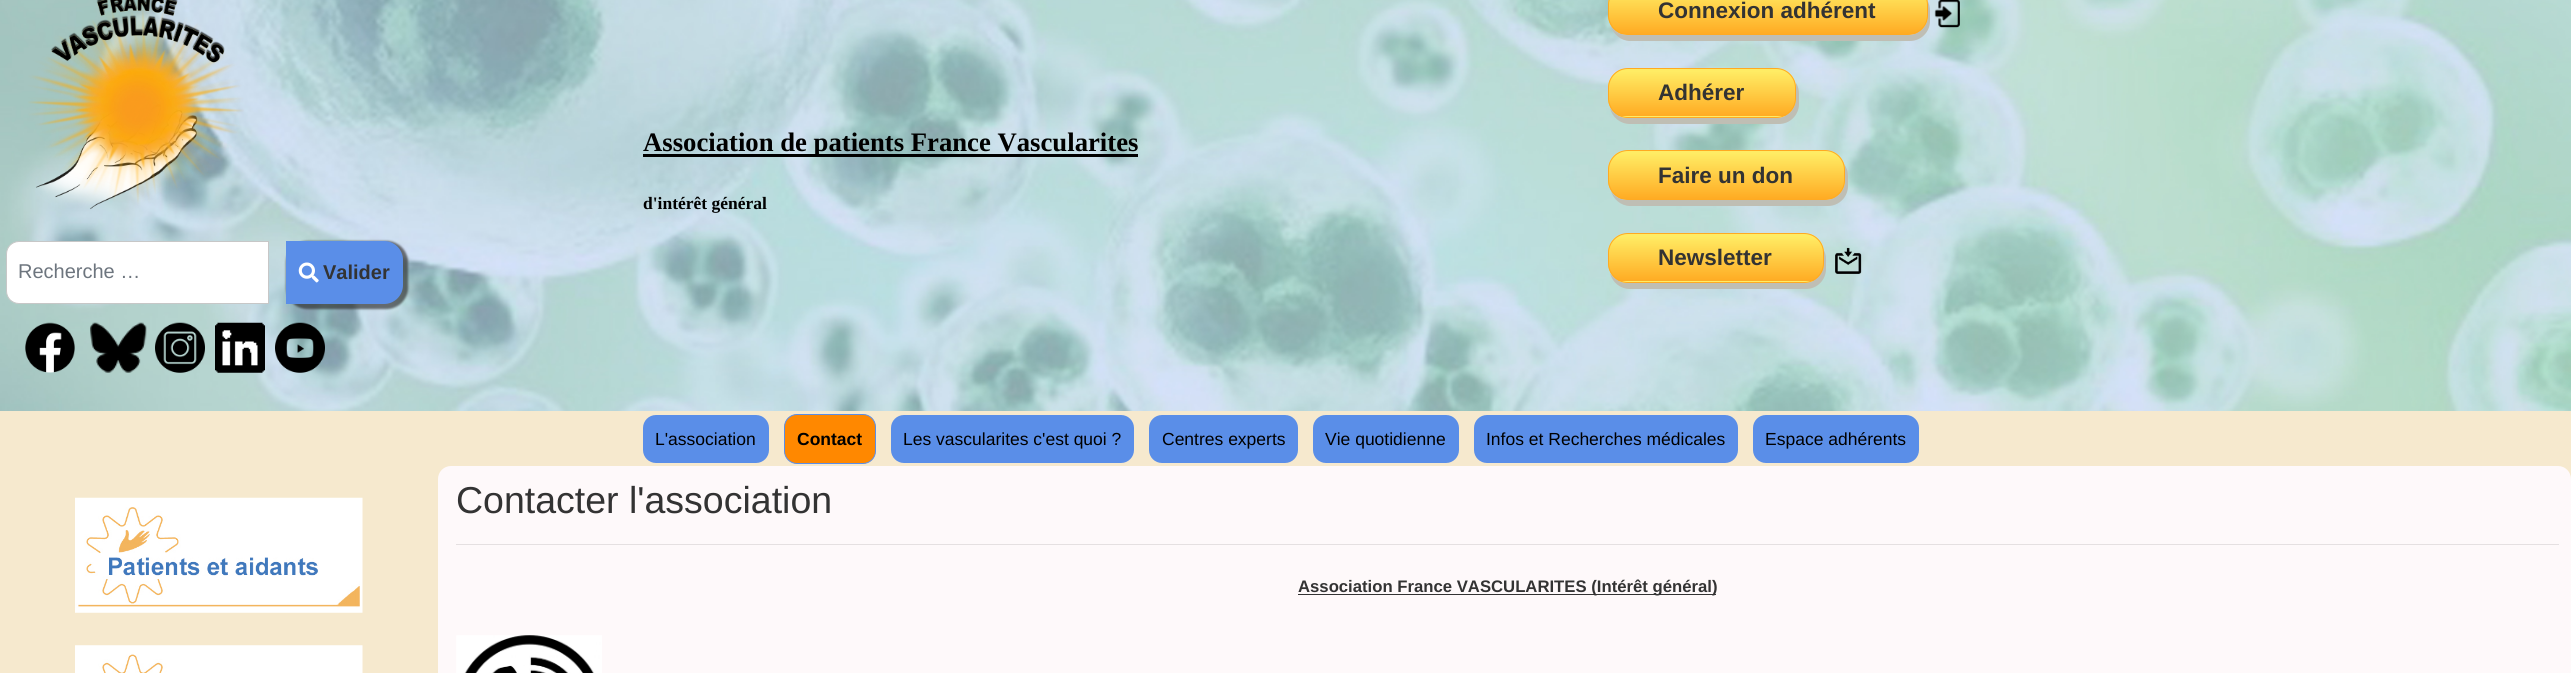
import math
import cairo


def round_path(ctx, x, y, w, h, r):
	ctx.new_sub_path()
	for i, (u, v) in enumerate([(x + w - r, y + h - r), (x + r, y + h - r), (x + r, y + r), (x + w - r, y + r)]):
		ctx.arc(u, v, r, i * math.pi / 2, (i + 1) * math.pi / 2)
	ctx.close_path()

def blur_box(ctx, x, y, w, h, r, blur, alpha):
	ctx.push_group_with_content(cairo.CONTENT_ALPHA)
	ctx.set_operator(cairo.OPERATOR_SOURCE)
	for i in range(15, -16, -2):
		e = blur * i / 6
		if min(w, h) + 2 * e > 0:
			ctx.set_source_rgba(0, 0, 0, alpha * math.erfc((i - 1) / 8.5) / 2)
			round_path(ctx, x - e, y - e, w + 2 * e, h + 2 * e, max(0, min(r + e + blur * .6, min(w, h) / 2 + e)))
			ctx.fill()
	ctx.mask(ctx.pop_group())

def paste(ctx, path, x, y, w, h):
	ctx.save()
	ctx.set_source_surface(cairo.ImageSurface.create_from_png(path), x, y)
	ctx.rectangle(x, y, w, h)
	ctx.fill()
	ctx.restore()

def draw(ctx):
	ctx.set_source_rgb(1, 1, 1)
	ctx.paint()
	paste(ctx, 'media/1.png', 0, 0, 2571, 411)
	ctx.set_source_rgb(0, 0, 0)
	ctx.rectangle(643, 154, 495, 3)
	ctx.fill()
	ctx.select_font_face('Liberation Serif', cairo.FONT_SLANT_NORMAL, cairo.FONT_WEIGHT_BOLD)
	ctx.set_font_size(26.7)
	ctx.move_to(643, 151)
	ctx.show_text('Association de patients France Vascularites')
	ctx.set_font_size(17.5)
	ctx.move_to(643, 209)
	ctx.show_text('d\'intérêt général')
	ctx.set_source_rgb(0.749, 0.745, 0.706)
	ctx.new_path()
	ctx.move_to(1611, 26)
	ctx.curve_to(1613, 34, 1621, 41, 1630, 41)
	ctx.line_to(1910, 41)
	ctx.curve_to(1921, 41, 1930, 32, 1930, 21)
	ctx.line_to(1930, 11)
	ctx.curve_to(1930, 7, 1929, 3, 1927, 0)
	ctx.line_to(1928, 5)
	ctx.line_to(1928, 15)
	ctx.curve_to(1928, 26, 1919, 35, 1908, 35)
	ctx.line_to(1628, 35)
	ctx.curve_to(1620, 35, 1614, 31, 1611, 26)
	ctx.close_path()
	ctx.fill()
	ctx.save()
	round_path(ctx, 1608, -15, 320, 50, 20)
	ctx.clip()
	gradient = cairo.LinearGradient(1768, -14, 1768, 34)
	gradient.add_color_stop_rgba(0.05, 1, 0.925, 0.392, 1)
	gradient.add_color_stop_rgba(1, 1, 0.671, 0.137, 1)
	ctx.set_source(gradient)
	ctx.rectangle(1608, 0, 320, 34)
	ctx.fill()
	ctx.restore()
	round_path(ctx, 1608.5, -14.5, 319, 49, 19.5)
	ctx.set_source_rgb(1, 0.667, 0.133)
	ctx.set_line_width(1)
	ctx.stroke()
	ctx.select_font_face('Liberation Sans', cairo.FONT_SLANT_NORMAL, cairo.FONT_WEIGHT_BOLD)
	ctx.set_font_size(22.5)
	ctx.set_source_rgb(0.2, 0.2, 0.2)
	ctx.move_to(1658, 18)
	ctx.show_text('Connexion adhérent')
	paste(ctx, 'media/2.png', 1934, 0, 26, 28)
	ctx.set_source_rgb(0.749, 0.745, 0.706)
	ctx.new_path()
	ctx.move_to(1610, 108)
	ctx.curve_to(1612, 117, 1620, 124, 1630, 124)
	ctx.line_to(1779, 124)
	ctx.curve_to(1790, 124, 1799, 115, 1799, 104)
	ctx.line_to(1799, 94)
	ctx.curve_to(1799, 90, 1798, 86, 1796, 83)
	ctx.line_to(1796, 98)
	ctx.curve_to(1796, 109, 1787, 118, 1776, 118)
	ctx.line_to(1628, 118)
	ctx.curve_to(1620, 118, 1614, 114, 1610, 108)
	ctx.close_path()
	ctx.fill()
	ctx.save()
	round_path(ctx, 1608, 68, 188, 50, 20)
	ctx.clip()
	gradient = cairo.LinearGradient(1702, 69, 1702, 116)
	gradient.add_color_stop_rgba(0.05, 1, 0.925, 0.392, 1)
	gradient.add_color_stop_rgba(1, 1, 0.671, 0.137, 1)
	ctx.set_source(gradient)
	ctx.rectangle(1608, 69, 188, 47)
	ctx.fill()
	gradient = cairo.LinearGradient(1702, 116, 1702, 164)
	gradient.add_color_stop_rgba(0.05, 1, 0.925, 0.392, 1)
	gradient.add_color_stop_rgba(1, 1, 0.671, 0.137, 1)
	ctx.set_source(gradient)
	ctx.rectangle(1619, 116, 166, 2)
	ctx.fill()
	ctx.restore()
	round_path(ctx, 1608.5, 68.5, 187, 49, 19.5)
	ctx.set_source_rgb(1, 0.667, 0.133)
	ctx.stroke()
	ctx.set_source_rgb(0.2, 0.2, 0.2)
	ctx.move_to(1658, 100)
	ctx.show_text('Adhérer')
	ctx.set_source_rgb(0.749, 0.745, 0.706)
	ctx.new_path()
	ctx.move_to(1611, 191)
	ctx.curve_to(1613, 199, 1621, 206, 1630, 206)
	ctx.line_to(1828, 206)
	ctx.curve_to(1839, 206, 1848, 197, 1848, 186)
	ctx.line_to(1848, 176)
	ctx.curve_to(1848, 172, 1847, 168, 1844, 164)
	ctx.line_to(1845, 170)
	ctx.line_to(1845, 180)
	ctx.curve_to(1845, 191, 1836, 200, 1825, 200)
	ctx.line_to(1628, 200)
	ctx.curve_to(1620, 200, 1614, 196, 1611, 191)
	ctx.close_path()
	ctx.fill()
	ctx.save()
	round_path(ctx, 1608, 150, 237, 50, 20)
	ctx.clip()
	gradient = cairo.LinearGradient(1726, 151, 1726, 199)
	gradient.add_color_stop_rgba(0.05, 1, 0.925, 0.392, 1)
	gradient.add_color_stop_rgba(1, 1, 0.671, 0.137, 1)
	ctx.set_source(gradient)
	ctx.rectangle(1608, 151, 237, 48)
	ctx.fill()
	ctx.restore()
	round_path(ctx, 1608.5, 150.5, 236, 49, 19.5)
	ctx.set_source_rgb(1, 0.667, 0.133)
	ctx.stroke()
	ctx.set_source_rgb(0.2, 0.2, 0.2)
	ctx.move_to(1658, 183)
	ctx.show_text('Faire un don')
	ctx.set_source_rgb(0.749, 0.745, 0.706)
	ctx.new_path()
	ctx.move_to(1610, 273)
	ctx.curve_to(1612, 282, 1620, 289, 1630, 289)
	ctx.line_to(1806, 289)
	ctx.curve_to(1817, 289, 1826, 280, 1826, 269)
	ctx.line_to(1826, 259)
	ctx.curve_to(1826, 255, 1825, 252, 1823, 249)
	ctx.line_to(1824, 262)
	ctx.curve_to(1824, 274, 1815, 282, 1804, 282)
	ctx.line_to(1628, 282)
	ctx.curve_to(1620, 282, 1614, 279, 1610, 273)
	ctx.close_path()
	ctx.fill()
	ctx.save()
	round_path(ctx, 1608, 233, 216, 50, 20)
	ctx.clip()
	gradient = cairo.LinearGradient(1716, 234, 1716, 281)
	gradient.add_color_stop_rgba(0.05, 1, 0.925, 0.392, 1)
	gradient.add_color_stop_rgba(1, 1, 0.671, 0.137, 1)
	ctx.set_source(gradient)
	ctx.rectangle(1608, 234, 216, 47)
	ctx.fill()
	gradient = cairo.LinearGradient(1716, 281, 1716, 329)
	gradient.add_color_stop_rgba(0.05, 1, 0.925, 0.392, 1)
	gradient.add_color_stop_rgba(1, 1, 0.671, 0.137, 1)
	ctx.set_source(gradient)
	ctx.rectangle(1619, 281, 194, 2)
	ctx.fill()
	ctx.restore()
	round_path(ctx, 1608.5, 233.5, 215, 49, 19.5)
	ctx.set_source_rgb(1, 0.667, 0.133)
	ctx.stroke()
	ctx.set_source_rgb(0.2, 0.2, 0.2)
	ctx.move_to(1658, 265)
	ctx.show_text('Newsletter')
	paste(ctx, 'media/3.png', 1835, 247, 27, 27)
	paste(ctx, 'media/4.png', 28, 0, 216, 210)
	ctx.set_source_rgb(1, 1, 1)
	ctx.new_path()
	ctx.move_to(19, 241.5)
	ctx.line_to(268.5, 241.5)
	ctx.line_to(268.5, 303.5)
	ctx.line_to(19, 303.5)
	ctx.curve_to(12, 303.5, 6.5, 298, 6.5, 291)
	ctx.line_to(6.5, 254)
	ctx.curve_to(6.5, 247, 12, 241.5, 19, 241.5)
	ctx.close_path()
	ctx.fill_preserve()
	ctx.set_source_rgb(0.78, 0.78, 0.78)
	ctx.stroke()
	ctx.select_font_face('Liberation Sans')
	ctx.set_font_size(20)
	ctx.set_source_rgb(0.427, 0.459, 0.494)
	ctx.move_to(18, 278)
	ctx.show_text('Recherche …')
	ctx.set_source_rgb(0.161, 0.161, 0.157)
	blur_box(ctx, 286, 241, 122, 68, 21, 1, 0.65)
	ctx.set_source_rgb(0.353, 0.557, 0.91)
	ctx.new_path()
	ctx.move_to(286, 241)
	ctx.line_to(384, 241)
	ctx.curve_to(394.5, 241, 403, 249.5, 403, 260)
	ctx.line_to(403, 285)
	ctx.curve_to(403, 295.5, 394.5, 304, 384, 304)
	ctx.line_to(286, 304)
	ctx.close_path()
	ctx.fill()
	paste(ctx, 'media/5.png', 298, 262, 21, 21)
	ctx.select_font_face('Liberation Sans', cairo.FONT_SLANT_NORMAL, cairo.FONT_WEIGHT_BOLD)
	ctx.set_source_rgb(0.2, 0.2, 0.2)
	ctx.move_to(323, 279)
	ctx.show_text('Valider')
	paste(ctx, 'media/6.png', 25, 322, 50, 51)
	paste(ctx, 'media/7.png', 90, 322, 57, 51)
	paste(ctx, 'media/8.png', 155, 322, 50, 51)
	paste(ctx, 'media/9.png', 215, 322, 50, 51)
	paste(ctx, 'media/10.png', 275, 322, 50, 51)
	ctx.set_source_rgb(0.961, 0.914, 0.808)
	ctx.rectangle(0, 411, 2571, 262)
	ctx.fill()
	ctx.set_source_rgb(0.353, 0.557, 0.91)
	round_path(ctx, 643, 415, 126, 48, 13)
	ctx.fill()
	ctx.select_font_face('Liberation Sans')
	ctx.set_font_size(17.5)
	ctx.set_source_rgb(0, 0, 0)
	ctx.move_to(655, 445)
	ctx.show_text('L\'association')
	ctx.set_source_rgb(1, 0.533, 0)
	round_path(ctx, 784.5, 414.5, 91, 49, 12.5)
	ctx.fill_preserve()
	ctx.set_source_rgb(0.353, 0.557, 0.91)
	ctx.stroke()
	ctx.select_font_face('Liberation Sans', cairo.FONT_SLANT_NORMAL, cairo.FONT_WEIGHT_BOLD)
	ctx.set_source_rgb(0, 0, 0)
	ctx.move_to(797, 445)
	ctx.show_text('Contact')
	ctx.set_source_rgb(0.353, 0.557, 0.91)
	round_path(ctx, 891, 415, 243, 48, 13)
	ctx.fill()
	ctx.select_font_face('Liberation Sans')
	ctx.set_source_rgb(0, 0, 0)
	ctx.move_to(903, 445)
	ctx.show_text('Les vascularites c\'est quoi ?')
	ctx.set_source_rgb(0.353, 0.557, 0.91)
	round_path(ctx, 1149, 415, 149, 48, 13)
	ctx.fill()
	ctx.set_source_rgb(0, 0, 0)
	ctx.move_to(1162, 445)
	ctx.show_text('Centres experts')
	ctx.set_source_rgb(0.353, 0.557, 0.91)
	round_path(ctx, 1313, 415, 146, 48, 13)
	ctx.fill()
	ctx.set_source_rgb(0, 0, 0)
	ctx.move_to(1325, 445)
	ctx.show_text('Vie quotidienne')
	ctx.set_source_rgb(0.353, 0.557, 0.91)
	round_path(ctx, 1474, 415, 264, 48, 13)
	ctx.fill()
	ctx.set_source_rgb(0, 0, 0)
	ctx.move_to(1486, 445)
	ctx.show_text('Infos et Recherches médicales')
	ctx.set_source_rgb(0.353, 0.557, 0.91)
	round_path(ctx, 1753, 415, 166, 48, 13)
	ctx.fill()
	ctx.set_source_rgb(0, 0, 0)
	ctx.move_to(1765, 445)
	ctx.show_text('Espace adhérents')
	paste(ctx, 'media/11.png', 75, 497, 288, 116)
	paste(ctx, 'media/12.png', 75, 645, 288, 28)
	ctx.set_source_rgb(0.996, 0.976, 0.98)
	round_path(ctx, 438, 466, 2133, 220, 13)
	ctx.fill()
	ctx.set_font_size(37.5)
	ctx.set_source_rgb(0.2, 0.2, 0.2)
	ctx.move_to(456, 513)
	ctx.show_text('Contacter l\'association')
	ctx.set_source_rgb(0.898, 0.878, 0.882)
	ctx.rectangle(456, 544, 2103, 1)
	ctx.fill()
	ctx.set_source_rgb(0.2, 0.2, 0.2)
	ctx.rectangle(1298, 594, 418, 1)
	ctx.fill()
	ctx.select_font_face('Liberation Sans', cairo.FONT_SLANT_NORMAL, cairo.FONT_WEIGHT_BOLD)
	ctx.set_font_size(16.7)
	ctx.move_to(1298, 592)
	ctx.show_text('Association France VASCULARITES (Intérêt général)')
	paste(ctx, 'media/13.png', 456, 635, 146, 38)


surface = cairo.ImageSurface(cairo.FORMAT_RGB24, 2571, 673)
ctx = cairo.Context(surface)
options = cairo.FontOptions()
options.set_hint_metrics(cairo.HINT_METRICS_OFF)
options.set_hint_style(cairo.HINT_STYLE_NONE)
ctx.set_font_options(options)
ctx.set_miter_limit(4)
draw(ctx)
surface.write_to_png('image.png')
